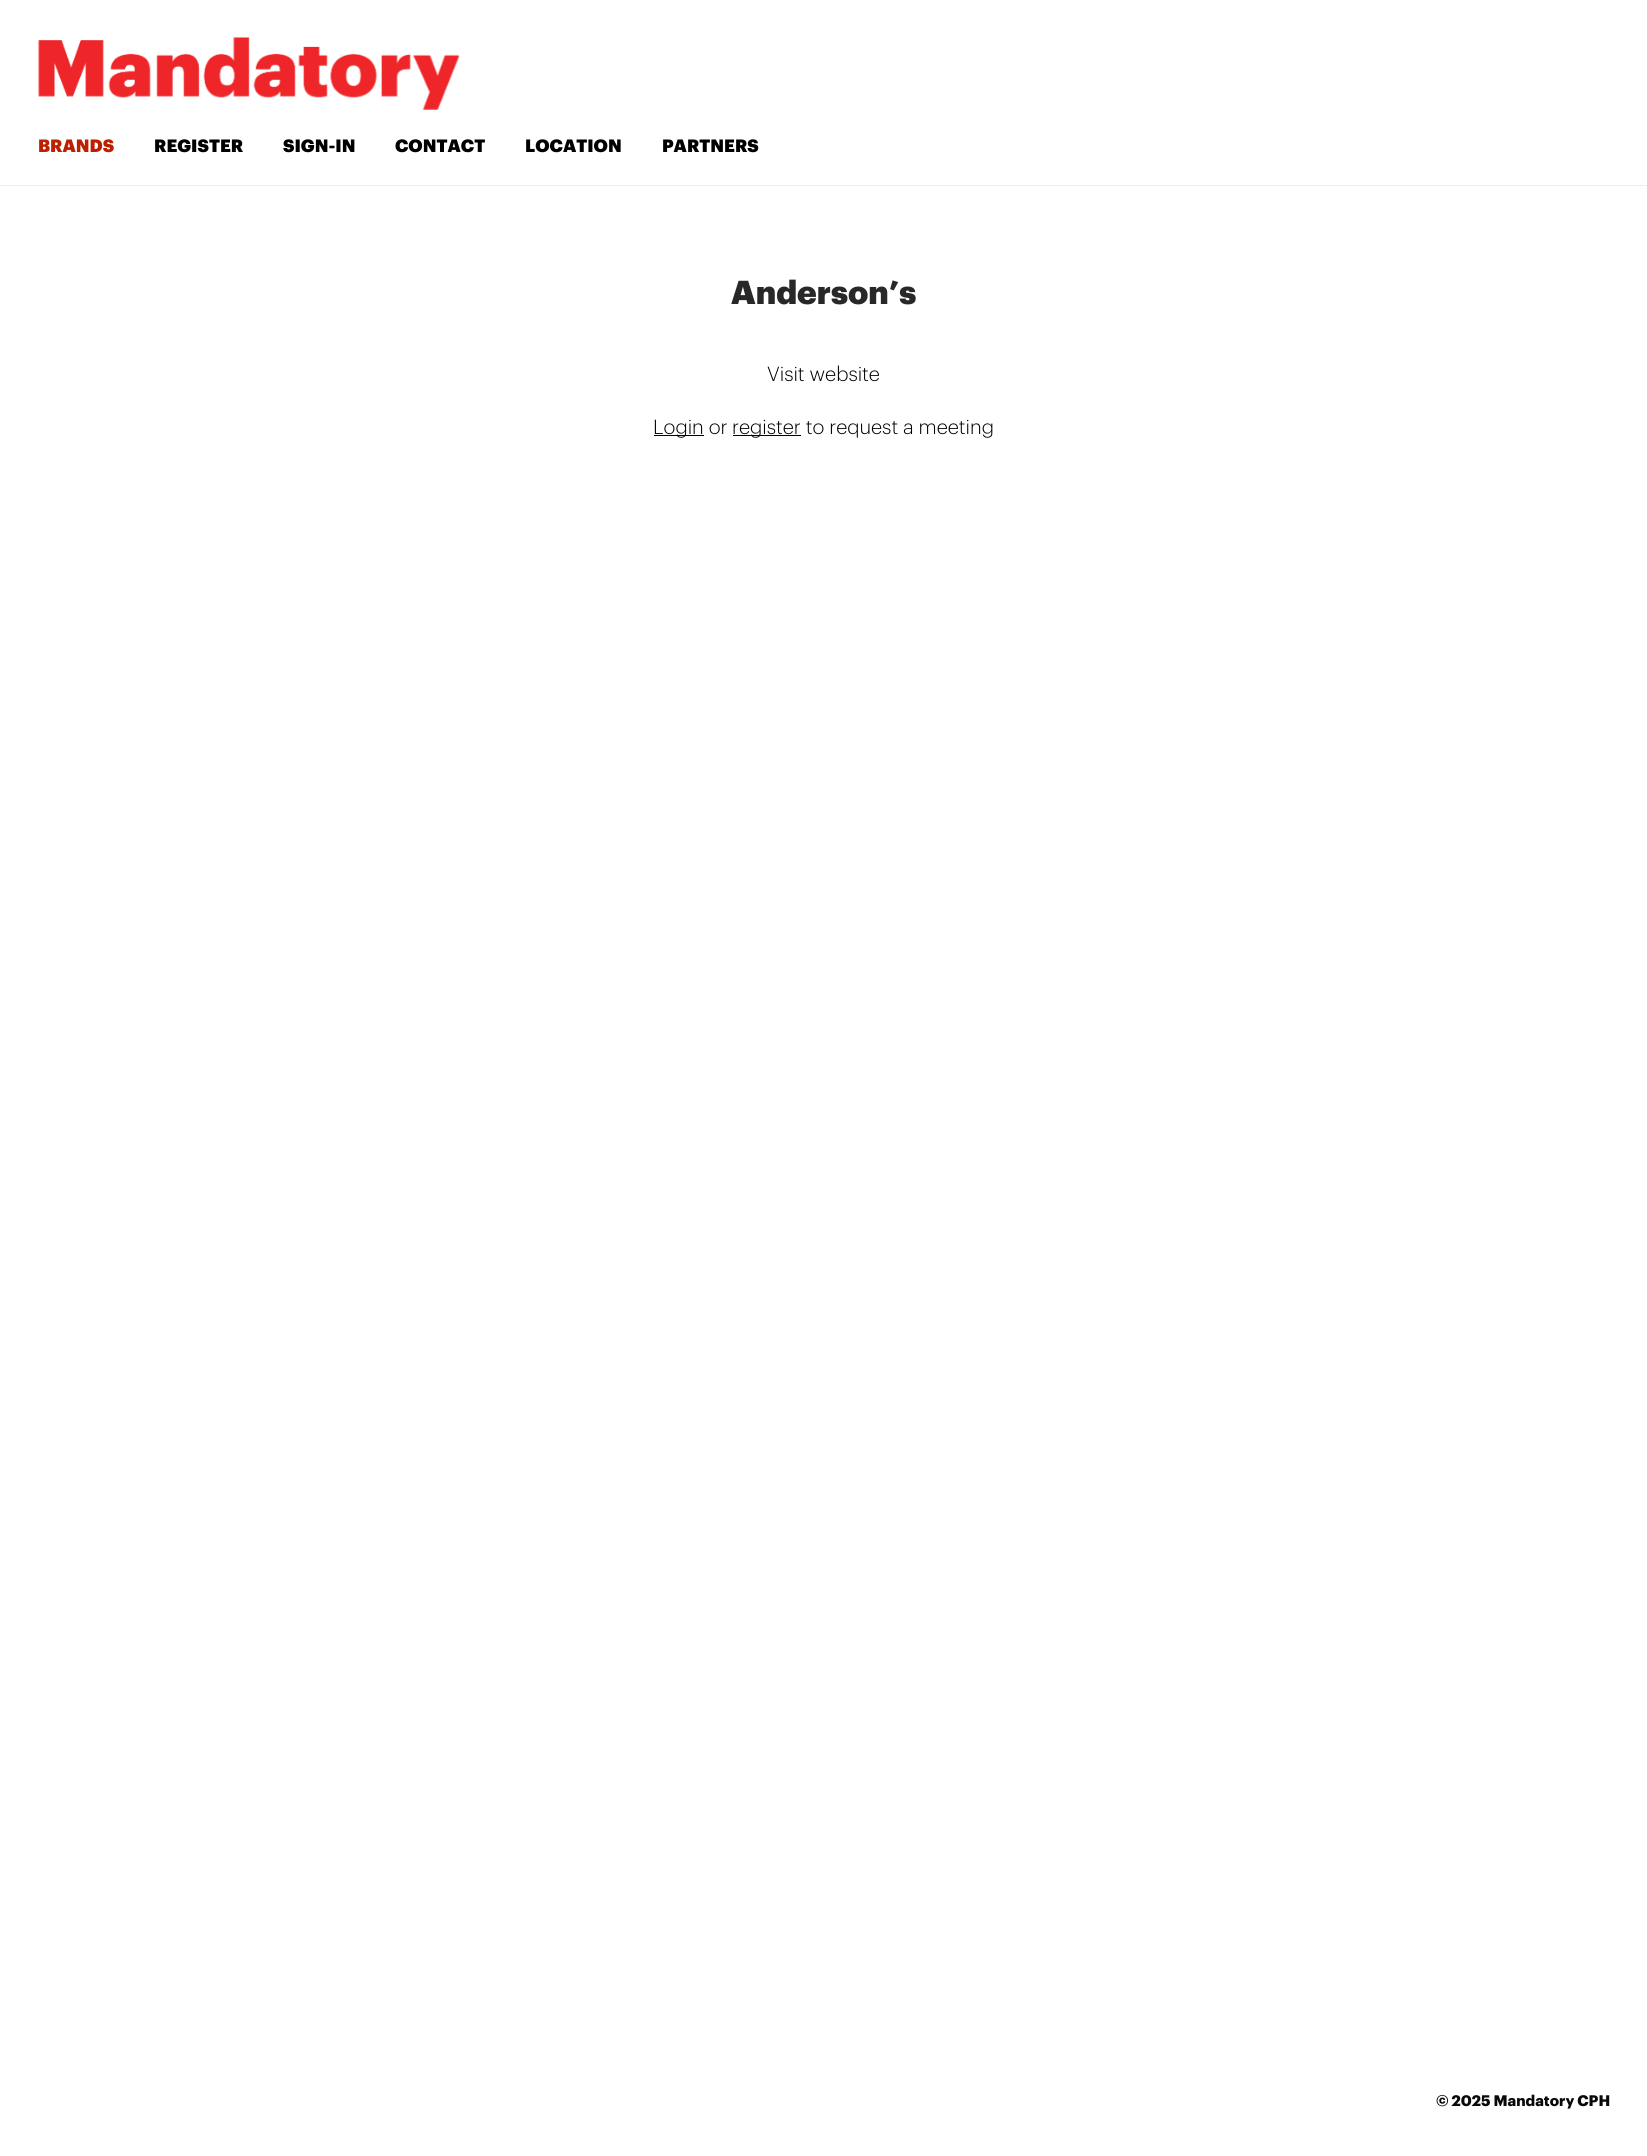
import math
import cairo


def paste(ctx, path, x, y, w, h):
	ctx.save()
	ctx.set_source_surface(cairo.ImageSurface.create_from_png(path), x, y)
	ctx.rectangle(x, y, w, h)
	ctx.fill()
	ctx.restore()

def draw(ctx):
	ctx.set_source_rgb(1, 1, 1)
	ctx.paint()
	ctx.set_source_rgb(0.933, 0.933, 0.933)
	ctx.rectangle(0, 185, 1647, 1)
	ctx.fill()
	paste(ctx, 'media/1.png', 38, 37, 422, 73)
	ctx.select_font_face('Graphik Black')
	ctx.set_font_size(17.5)
	ctx.set_source_rgb(0.741, 0.122, 0)
	ctx.move_to(38, 152)
	ctx.show_text('BRANDS')
	ctx.set_source_rgb(0, 0, 0)
	for x, y, s in [
		(154, 152, 'REGISTER'),
		(283, 152, 'SIGN-IN'),
		(395, 152, 'CONTACT'),
		(525, 152, 'LOCATION'),
		(662, 152, 'PARTNERS'),
	]:
		ctx.move_to(x, y)
		ctx.show_text(s)
	ctx.set_font_size(32.5)
	ctx.set_source_rgb(0.157, 0.157, 0.157)
	ctx.move_to(731, 304)
	ctx.show_text('Anderson’s')
	ctx.select_font_face('Graphik Light')
	ctx.set_font_size(20)
	ctx.set_source_rgb(0, 0, 0)
	ctx.move_to(767, 381)
	ctx.show_text('Visit website')
	ctx.rectangle(654, 435, 50, 1)
	ctx.fill()
	ctx.move_to(653, 434)
	ctx.show_text('Login or')
	ctx.rectangle(733, 435, 68, 1)
	ctx.fill()
	ctx.move_to(732, 434)
	ctx.show_text('register to request a meeting')
	ctx.select_font_face('Graphik', cairo.FONT_SLANT_NORMAL, cairo.FONT_WEIGHT_BOLD)
	ctx.set_font_size(15)
	ctx.set_source_rgb(0.039, 0.039, 0.039)
	ctx.move_to(1436, 2106)
	ctx.show_text('© 2025 Mandatory CPH')


surface = cairo.ImageSurface(cairo.FORMAT_RGB24, 1647, 2156)
ctx = cairo.Context(surface)
options = cairo.FontOptions()
options.set_hint_metrics(cairo.HINT_METRICS_OFF)
options.set_hint_style(cairo.HINT_STYLE_NONE)
ctx.set_font_options(options)
ctx.set_miter_limit(4)
draw(ctx)
surface.write_to_png('image.png')
